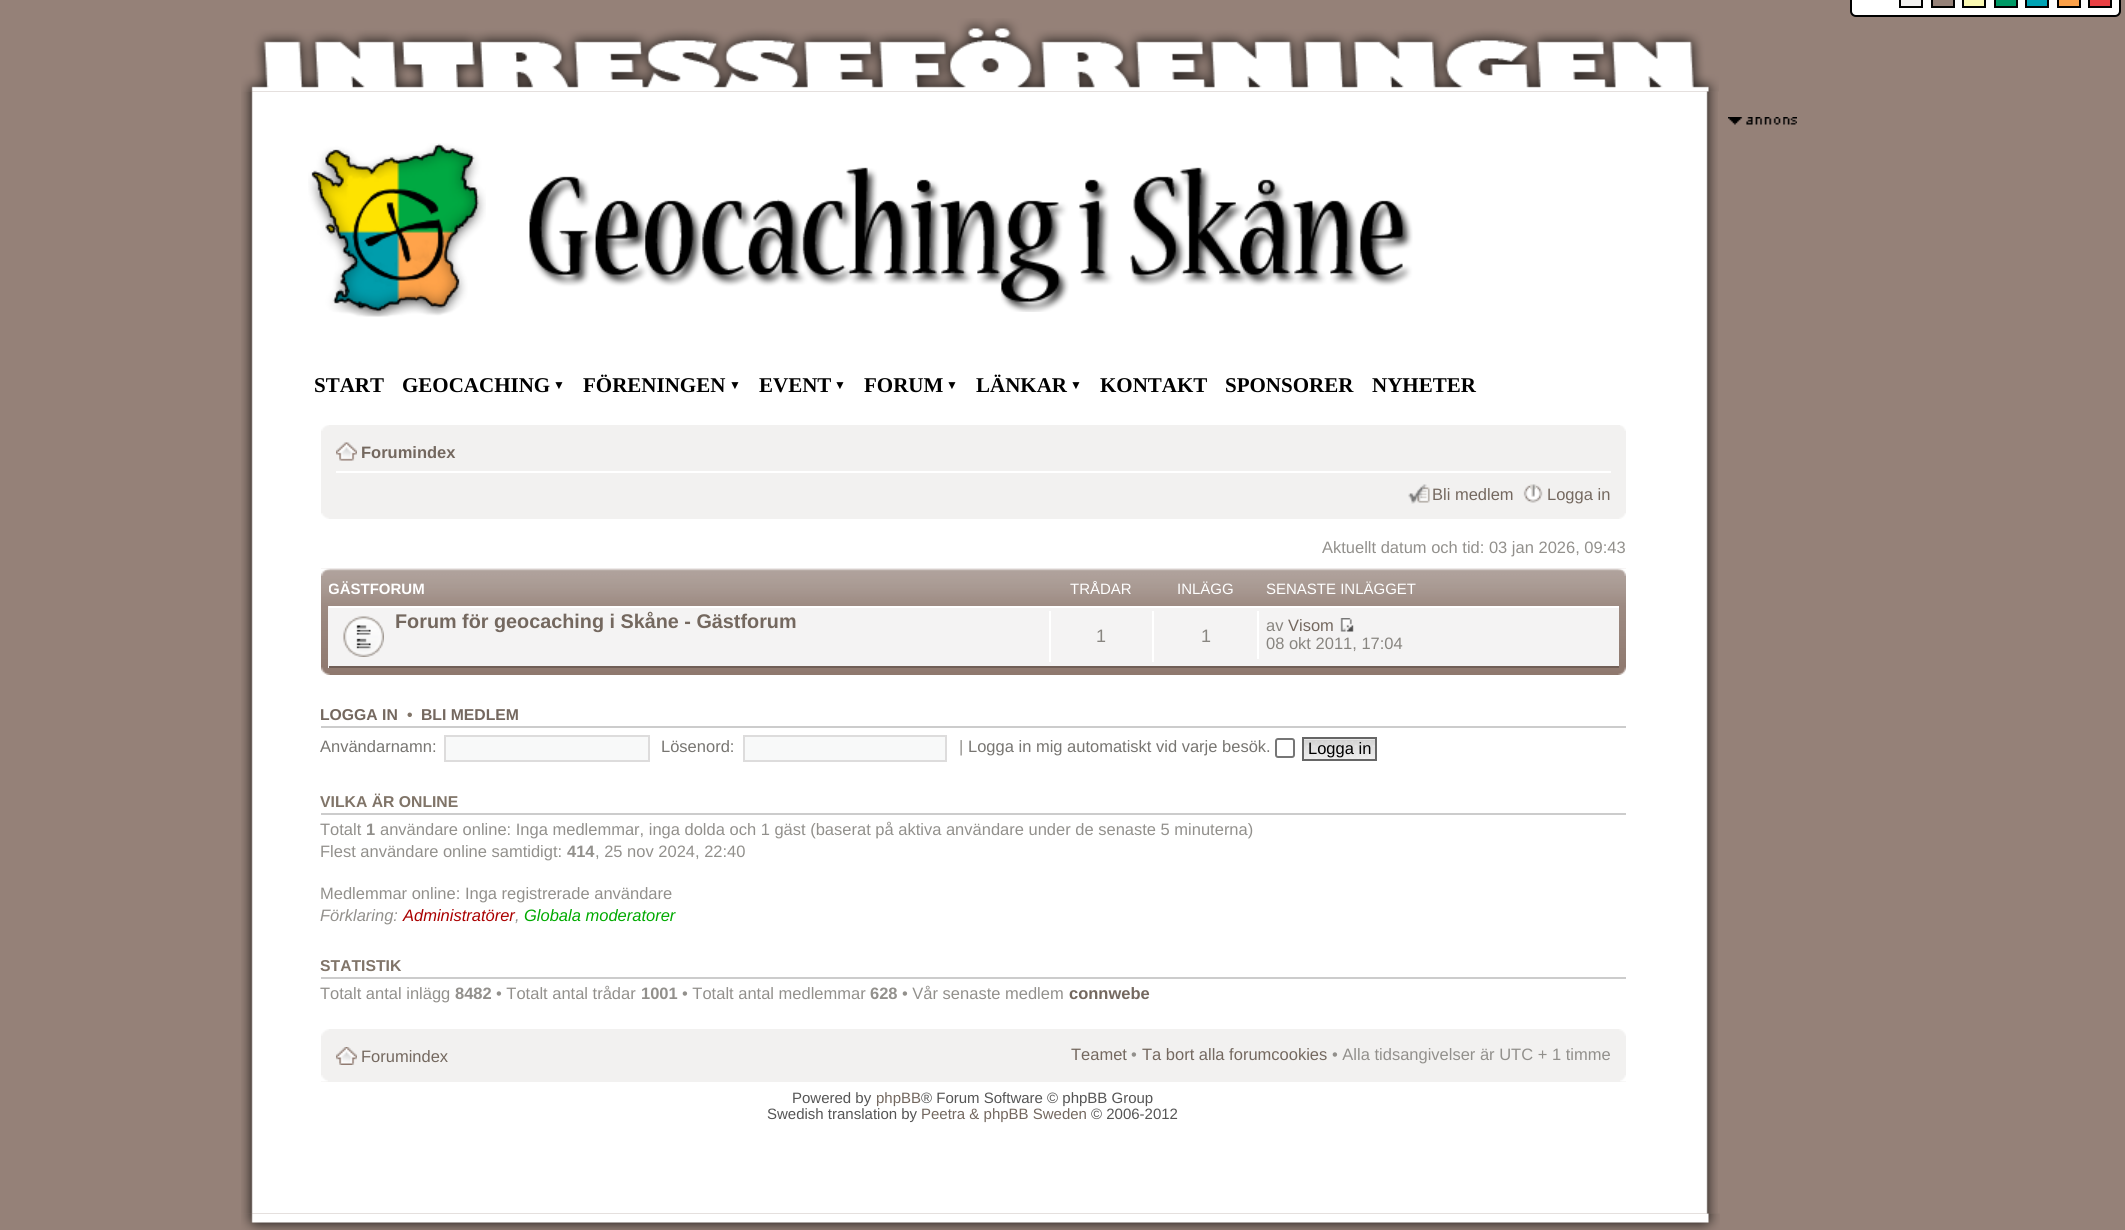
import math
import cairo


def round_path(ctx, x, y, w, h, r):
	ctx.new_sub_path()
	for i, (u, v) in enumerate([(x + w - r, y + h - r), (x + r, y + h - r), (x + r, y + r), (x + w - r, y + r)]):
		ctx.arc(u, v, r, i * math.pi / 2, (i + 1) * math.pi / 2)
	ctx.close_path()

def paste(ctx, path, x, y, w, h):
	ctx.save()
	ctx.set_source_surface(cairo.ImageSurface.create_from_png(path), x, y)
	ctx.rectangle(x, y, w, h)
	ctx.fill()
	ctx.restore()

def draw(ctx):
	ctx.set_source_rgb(0.584, 0.506, 0.471)
	ctx.paint()
	ctx.set_source_rgb(1, 1, 1)
	round_path(ctx, 1851, -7, 269, 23, 5)
	ctx.fill_preserve()
	ctx.set_source_rgb(0, 0, 0)
	ctx.stroke()
	ctx.set_source_rgb(0.949, 0.945, 0.941)
	ctx.rectangle(1900, -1, 22, 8)
	ctx.fill_preserve()
	ctx.set_source_rgb(0, 0, 0)
	ctx.stroke()
	ctx.set_source_rgb(0.584, 0.506, 0.471)
	ctx.rectangle(1932, -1, 22, 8)
	ctx.fill_preserve()
	ctx.set_source_rgb(0, 0, 0)
	ctx.stroke()
	ctx.set_source_rgb(0.984, 0.976, 0.702)
	ctx.rectangle(1963, -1, 22, 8)
	ctx.fill_preserve()
	ctx.set_source_rgb(0, 0, 0)
	ctx.stroke()
	ctx.set_source_rgb(0, 0.6, 0.4)
	ctx.rectangle(1995, -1, 22, 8)
	ctx.fill_preserve()
	ctx.set_source_rgb(0, 0, 0)
	ctx.stroke()
	ctx.set_source_rgb(0, 0.639, 0.706)
	ctx.rectangle(2026, -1, 22, 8)
	ctx.fill_preserve()
	ctx.set_source_rgb(0, 0, 0)
	ctx.stroke()
	ctx.set_source_rgb(0.988, 0.631, 0.286)
	ctx.rectangle(2058, -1, 22, 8)
	ctx.fill_preserve()
	ctx.set_source_rgb(0, 0, 0)
	ctx.stroke()
	ctx.set_source_rgb(0.914, 0.247, 0.263)
	ctx.rectangle(2089, -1, 22, 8)
	ctx.fill_preserve()
	ctx.set_source_rgb(0, 0, 0)
	ctx.stroke()
	paste(ctx, 'media/1.png', 241, 18, 1478, 74)
	paste(ctx, 'media/2.png', 1728, 117, 69, 8)
	paste(ctx, 'media/3.png', 241, 91, 1477, 311)
	paste(ctx, 'media/4.png', 308, 143, 178, 174)
	paste(ctx, 'media/5.png', 529, 167, 884, 145)
	ctx.select_font_face('Liberation Serif', cairo.FONT_SLANT_NORMAL, cairo.FONT_WEIGHT_BOLD)
	ctx.set_font_size(21)
	ctx.move_to(314, 392)
	ctx.show_text('START')
	ctx.move_to(402, 392)
	ctx.show_text('GEOCACHING')
	ctx.set_font_size(12)
	ctx.move_to(553, 389)
	ctx.show_text('▼')
	ctx.set_font_size(21)
	ctx.move_to(583, 392)
	ctx.show_text('FÖRENINGEN')
	ctx.set_font_size(12)
	ctx.move_to(729, 389)
	ctx.show_text('▼')
	ctx.set_font_size(21)
	ctx.move_to(759, 392)
	ctx.show_text('EVENT')
	ctx.set_font_size(12)
	ctx.move_to(834, 389)
	ctx.show_text('▼')
	ctx.set_font_size(21)
	ctx.move_to(864, 392)
	ctx.show_text('FORUM')
	ctx.set_font_size(12)
	ctx.move_to(946, 389)
	ctx.show_text('▼')
	ctx.set_font_size(21)
	ctx.move_to(976, 392)
	ctx.show_text('LÄNKAR')
	ctx.set_font_size(12)
	ctx.move_to(1070, 389)
	ctx.show_text('▼')
	ctx.set_font_size(21)
	for x, y, s in [
		(1100, 392, 'KONTAKT'),
		(1225, 392, 'SPONSORER'),
		(1372, 392, 'NYHETER'),
	]:
		ctx.move_to(x, y)
		ctx.show_text(s)
	paste(ctx, 'media/27.png', 241, 1213, 1479, 17)
	paste(ctx, 'media/6.png', 241, 402, 1477, 812)
	ctx.set_source_rgb(0.949, 0.945, 0.941)
	ctx.rectangle(321, 425, 1305, 94)
	ctx.fill()
	paste(ctx, 'media/7.png', 321, 425, 8, 6)
	paste(ctx, 'media/8.png', 1620, 425, 6, 6)
	ctx.set_source_rgb(1, 1, 1)
	ctx.rectangle(336, 471, 1275, 2)
	ctx.fill()
	paste(ctx, 'media/9.png', 336, 442, 21, 19)
	ctx.select_font_face('Liberation Sans', cairo.FONT_SLANT_NORMAL, cairo.FONT_WEIGHT_BOLD)
	ctx.set_font_size(16.5)
	ctx.set_source_rgb(0.455, 0.408, 0.373)
	ctx.move_to(361, 458)
	ctx.show_text('Forumindex')
	paste(ctx, 'media/10.png', 1408, 484, 22, 20)
	ctx.select_font_face('Liberation Sans')
	ctx.move_to(1432, 500)
	ctx.show_text('Bli medlem')
	paste(ctx, 'media/11.png', 1523, 484, 20, 19)
	ctx.move_to(1547, 500)
	ctx.show_text('Logga in')
	paste(ctx, 'media/12.png', 321, 513, 8, 6)
	paste(ctx, 'media/13.png', 1619, 513, 7, 6)
	ctx.set_source_rgb(0.573, 0.565, 0.549)
	ctx.move_to(1322, 553)
	ctx.show_text('Aktuellt datum och tid: 03 jan 2026, 09:43')
	paste(ctx, 'media/14.png', 321, 568, 1305, 107)
	paste(ctx, 'media/15.png', 321, 568, 9, 8)
	paste(ctx, 'media/16.png', 1618, 568, 8, 8)
	ctx.save()
	ctx.rectangle(329, 576, 1290, 30)
	ctx.clip()
	ctx.select_font_face('Liberation Sans', cairo.FONT_SLANT_NORMAL, cairo.FONT_WEIGHT_BOLD)
	ctx.set_font_size(15)
	ctx.set_source_rgb(1, 1, 1)
	ctx.move_to(328, 594)
	ctx.show_text('GÄSTFORUM')
	ctx.restore()
	ctx.set_font_size(15)
	ctx.set_source_rgb(1, 1, 1)
	for x, y, s in [
		(1070, 594, 'TRÅDAR'),
		(1177, 594, 'INLÄGG'),
		(1266, 594, 'SENASTE INLÄGGET'),
	]:
		ctx.move_to(x, y)
		ctx.show_text(s)
	ctx.set_source_rgb(0.957, 0.953, 0.953)
	ctx.rectangle(328, 606, 1291, 62)
	ctx.fill()
	ctx.set_source_rgb(1, 1, 1)
	ctx.rectangle(329, 606, 1290, 2)
	ctx.fill()
	ctx.set_source_rgb(0.439, 0.369, 0.337)
	ctx.rectangle(329, 666, 1290, 2)
	ctx.fill()
	paste(ctx, 'media/17.png', 343, 616, 41, 41)
	ctx.select_font_face('Liberation Sans', cairo.FONT_SLANT_NORMAL, cairo.FONT_WEIGHT_BOLD)
	ctx.set_font_size(19.8)
	ctx.set_source_rgb(0.455, 0.408, 0.373)
	ctx.move_to(395, 628)
	ctx.show_text('Forum för geocaching i Skåne - Gästforum')
	ctx.set_source_rgb(1, 1, 1)
	ctx.rectangle(1049, 611, 2, 51)
	ctx.fill()
	ctx.select_font_face('Liberation Sans')
	ctx.set_font_size(18)
	ctx.set_source_rgb(0.533, 0.522, 0.502)
	ctx.move_to(1096, 642)
	ctx.show_text('1')
	ctx.set_source_rgb(1, 1, 1)
	ctx.rectangle(1152, 611, 2, 51)
	ctx.fill()
	ctx.set_source_rgb(0.533, 0.522, 0.502)
	ctx.move_to(1201, 642)
	ctx.show_text('1')
	ctx.set_source_rgb(1, 1, 1)
	ctx.rectangle(1257, 611, 2, 48)
	ctx.fill()
	ctx.set_font_size(16.5)
	ctx.set_source_rgb(0.533, 0.522, 0.502)
	ctx.move_to(1266, 631)
	ctx.show_text('av')
	ctx.set_source_rgb(0.455, 0.408, 0.373)
	ctx.move_to(1288, 631)
	ctx.show_text('Visom')
	paste(ctx, 'media/18.png', 1340, 618, 14, 14)
	ctx.set_source_rgb(0.533, 0.522, 0.502)
	ctx.move_to(1266, 649)
	ctx.show_text('08 okt 2011, 17:04')
	paste(ctx, 'media/19.png', 321, 667, 9, 8)
	paste(ctx, 'media/20.png', 1618, 667, 8, 8)
	ctx.set_source_rgb(0.8, 0.8, 0.8)
	ctx.rectangle(321, 726, 1305, 2)
	ctx.fill()
	ctx.select_font_face('Liberation Sans', cairo.FONT_SLANT_NORMAL, cairo.FONT_WEIGHT_BOLD)
	ctx.set_font_size(15.75)
	ctx.set_source_rgb(0.455, 0.408, 0.373)
	ctx.move_to(320, 720)
	ctx.show_text('LOGGA IN')
	ctx.set_source_rgb(0.502, 0.455, 0.408)
	ctx.move_to(407, 720)
	ctx.show_text('•')
	ctx.set_source_rgb(0.455, 0.408, 0.373)
	ctx.move_to(421, 720)
	ctx.show_text('BLI MEDLEM')
	ctx.select_font_face('Liberation Sans')
	ctx.set_font_size(16.5)
	ctx.set_source_rgb(0.467, 0.459, 0.443)
	ctx.move_to(320, 752)
	ctx.show_text('Användarnamn:')
	ctx.set_source_rgb(0.969, 0.973, 0.973)
	ctx.rectangle(445, 736, 204, 25)
	ctx.fill_preserve()
	ctx.set_source_rgb(0.867, 0.863, 0.863)
	ctx.stroke()
	ctx.set_source_rgb(0.467, 0.459, 0.443)
	ctx.move_to(661, 752)
	ctx.show_text('Lösenord:')
	ctx.set_source_rgb(0.969, 0.973, 0.973)
	ctx.rectangle(744, 736, 202, 25)
	ctx.fill_preserve()
	ctx.set_source_rgb(0.867, 0.863, 0.863)
	ctx.stroke()
	ctx.set_source_rgb(0.573, 0.565, 0.549)
	ctx.move_to(959, 752)
	ctx.show_text('|')
	ctx.set_source_rgb(0.467, 0.459, 0.443)
	ctx.move_to(968, 752)
	ctx.show_text('Logga in mig automatiskt vid varje besök.')
	round_path(ctx, 1276, 739, 18, 18, 2)
	ctx.set_source_rgb(0.463, 0.463, 0.463)
	ctx.stroke()
	paste(ctx, 'media/21.png', 1304, 739, 71, 20)
	ctx.rectangle(1303, 738, 73, 22)
	ctx.set_source_rgb(0.4, 0.4, 0.4)
	ctx.stroke()
	ctx.set_source_rgb(0, 0, 0)
	ctx.move_to(1308, 754)
	ctx.show_text('Logga in')
	ctx.set_source_rgb(0.8, 0.8, 0.8)
	ctx.rectangle(321, 813, 1305, 2)
	ctx.fill()
	ctx.select_font_face('Liberation Sans', cairo.FONT_SLANT_NORMAL, cairo.FONT_WEIGHT_BOLD)
	ctx.set_font_size(15.75)
	ctx.set_source_rgb(0.502, 0.455, 0.408)
	ctx.move_to(320, 807)
	ctx.show_text('VILKA ÄR ONLINE')
	ctx.select_font_face('Liberation Sans')
	ctx.set_font_size(16.5)
	ctx.set_source_rgb(0.573, 0.565, 0.549)
	ctx.move_to(320, 835)
	ctx.show_text('Totalt')
	ctx.select_font_face('Liberation Sans', cairo.FONT_SLANT_NORMAL, cairo.FONT_WEIGHT_BOLD)
	ctx.move_to(366, 835)
	ctx.show_text('1')
	ctx.select_font_face('Liberation Sans')
	ctx.move_to(380, 835)
	ctx.show_text('användare online: Inga medlemmar, inga dolda och 1 gäst (baserat på aktiva användare under de senaste 5 minuterna)')
	ctx.move_to(320, 857)
	ctx.show_text('Flest användare online samtidigt:')
	ctx.select_font_face('Liberation Sans', cairo.FONT_SLANT_NORMAL, cairo.FONT_WEIGHT_BOLD)
	ctx.move_to(567, 857)
	ctx.show_text('414')
	ctx.select_font_face('Liberation Sans')
	ctx.move_to(595, 857)
	ctx.show_text(', 25 nov 2024, 22:40')
	ctx.move_to(320, 899)
	ctx.show_text('Medlemmar online: Inga registrerade användare')
	ctx.select_font_face('Liberation Sans', cairo.FONT_SLANT_ITALIC)
	ctx.move_to(320, 921)
	ctx.show_text('Förklaring:')
	ctx.set_source_rgb(0.667, 0, 0)
	ctx.move_to(403, 921)
	ctx.show_text('Administratörer')
	ctx.set_source_rgb(0, 0.667, 0)
	ctx.move_to(524, 921)
	ctx.show_text('Globala moderatorer')
	ctx.set_source_rgb(0.573, 0.565, 0.549)
	ctx.move_to(515, 921)
	ctx.show_text(',')
	ctx.set_source_rgb(0.8, 0.8, 0.8)
	ctx.rectangle(321, 977, 1305, 2)
	ctx.fill()
	ctx.select_font_face('Liberation Sans', cairo.FONT_SLANT_NORMAL, cairo.FONT_WEIGHT_BOLD)
	ctx.set_font_size(15.75)
	ctx.set_source_rgb(0.502, 0.455, 0.408)
	ctx.move_to(320, 971)
	ctx.show_text('STATISTIK')
	ctx.select_font_face('Liberation Sans')
	ctx.set_font_size(16.5)
	ctx.set_source_rgb(0.573, 0.565, 0.549)
	ctx.move_to(320, 999)
	ctx.show_text('Totalt antal inlägg')
	ctx.select_font_face('Liberation Sans', cairo.FONT_SLANT_NORMAL, cairo.FONT_WEIGHT_BOLD)
	ctx.move_to(455, 999)
	ctx.show_text('8482')
	ctx.select_font_face('Liberation Sans')
	ctx.move_to(496, 999)
	ctx.show_text('• Totalt antal trådar')
	ctx.select_font_face('Liberation Sans', cairo.FONT_SLANT_NORMAL, cairo.FONT_WEIGHT_BOLD)
	ctx.move_to(641, 999)
	ctx.show_text('1001')
	ctx.select_font_face('Liberation Sans')
	ctx.move_to(682, 999)
	ctx.show_text('• Totalt antal medlemmar')
	ctx.select_font_face('Liberation Sans', cairo.FONT_SLANT_NORMAL, cairo.FONT_WEIGHT_BOLD)
	ctx.move_to(870, 999)
	ctx.show_text('628')
	ctx.select_font_face('Liberation Sans')
	ctx.move_to(902, 999)
	ctx.show_text('• Vår senaste medlem')
	ctx.select_font_face('Liberation Sans', cairo.FONT_SLANT_NORMAL, cairo.FONT_WEIGHT_BOLD)
	ctx.set_source_rgb(0.455, 0.408, 0.373)
	ctx.move_to(1069, 999)
	ctx.show_text('connwebe')
	ctx.set_source_rgb(0.949, 0.945, 0.941)
	ctx.rectangle(321, 1029, 1305, 53)
	ctx.fill()
	paste(ctx, 'media/22.png', 321, 1029, 8, 7)
	paste(ctx, 'media/23.png', 1619, 1029, 7, 7)
	paste(ctx, 'media/24.png', 336, 1047, 21, 18)
	ctx.select_font_face('Liberation Sans')
	ctx.set_source_rgb(0.455, 0.408, 0.373)
	ctx.move_to(361, 1062)
	ctx.show_text('Forumindex')
	ctx.move_to(1071, 1060)
	ctx.show_text('Teamet')
	ctx.set_source_rgb(0.573, 0.565, 0.549)
	ctx.move_to(1131, 1060)
	ctx.show_text('•')
	ctx.set_source_rgb(0.455, 0.408, 0.373)
	ctx.move_to(1142, 1060)
	ctx.show_text('Ta bort alla forumcookies')
	ctx.set_source_rgb(0.573, 0.565, 0.549)
	ctx.move_to(1332, 1060)
	ctx.show_text('• Alla tidsangivelser är UTC + 1 timme')
	paste(ctx, 'media/25.png', 321, 1075, 7, 7)
	paste(ctx, 'media/26.png', 1620, 1075, 6, 7)
	ctx.set_font_size(15)
	ctx.set_source_rgb(0.333, 0.333, 0.333)
	ctx.move_to(792, 1103)
	ctx.show_text('Powered by')
	ctx.set_source_rgb(0.455, 0.408, 0.373)
	ctx.move_to(876, 1103)
	ctx.show_text('phpBB')
	ctx.set_source_rgb(0.333, 0.333, 0.333)
	ctx.move_to(921, 1103)
	ctx.show_text('® Forum Software © phpBB Group')
	ctx.move_to(767, 1119)
	ctx.show_text('Swedish translation by')
	ctx.set_source_rgb(0.455, 0.408, 0.373)
	ctx.move_to(921, 1119)
	ctx.show_text('Peetra & phpBB Sweden')
	ctx.set_source_rgb(0.333, 0.333, 0.333)
	ctx.move_to(1091, 1119)
	ctx.show_text('© 2006-2012')


surface = cairo.ImageSurface(cairo.FORMAT_RGB24, 2125, 1230)
ctx = cairo.Context(surface)
options = cairo.FontOptions()
options.set_hint_metrics(cairo.HINT_METRICS_OFF)
options.set_hint_style(cairo.HINT_STYLE_NONE)
ctx.set_font_options(options)
ctx.set_miter_limit(4)
draw(ctx)
surface.write_to_png('image.png')
